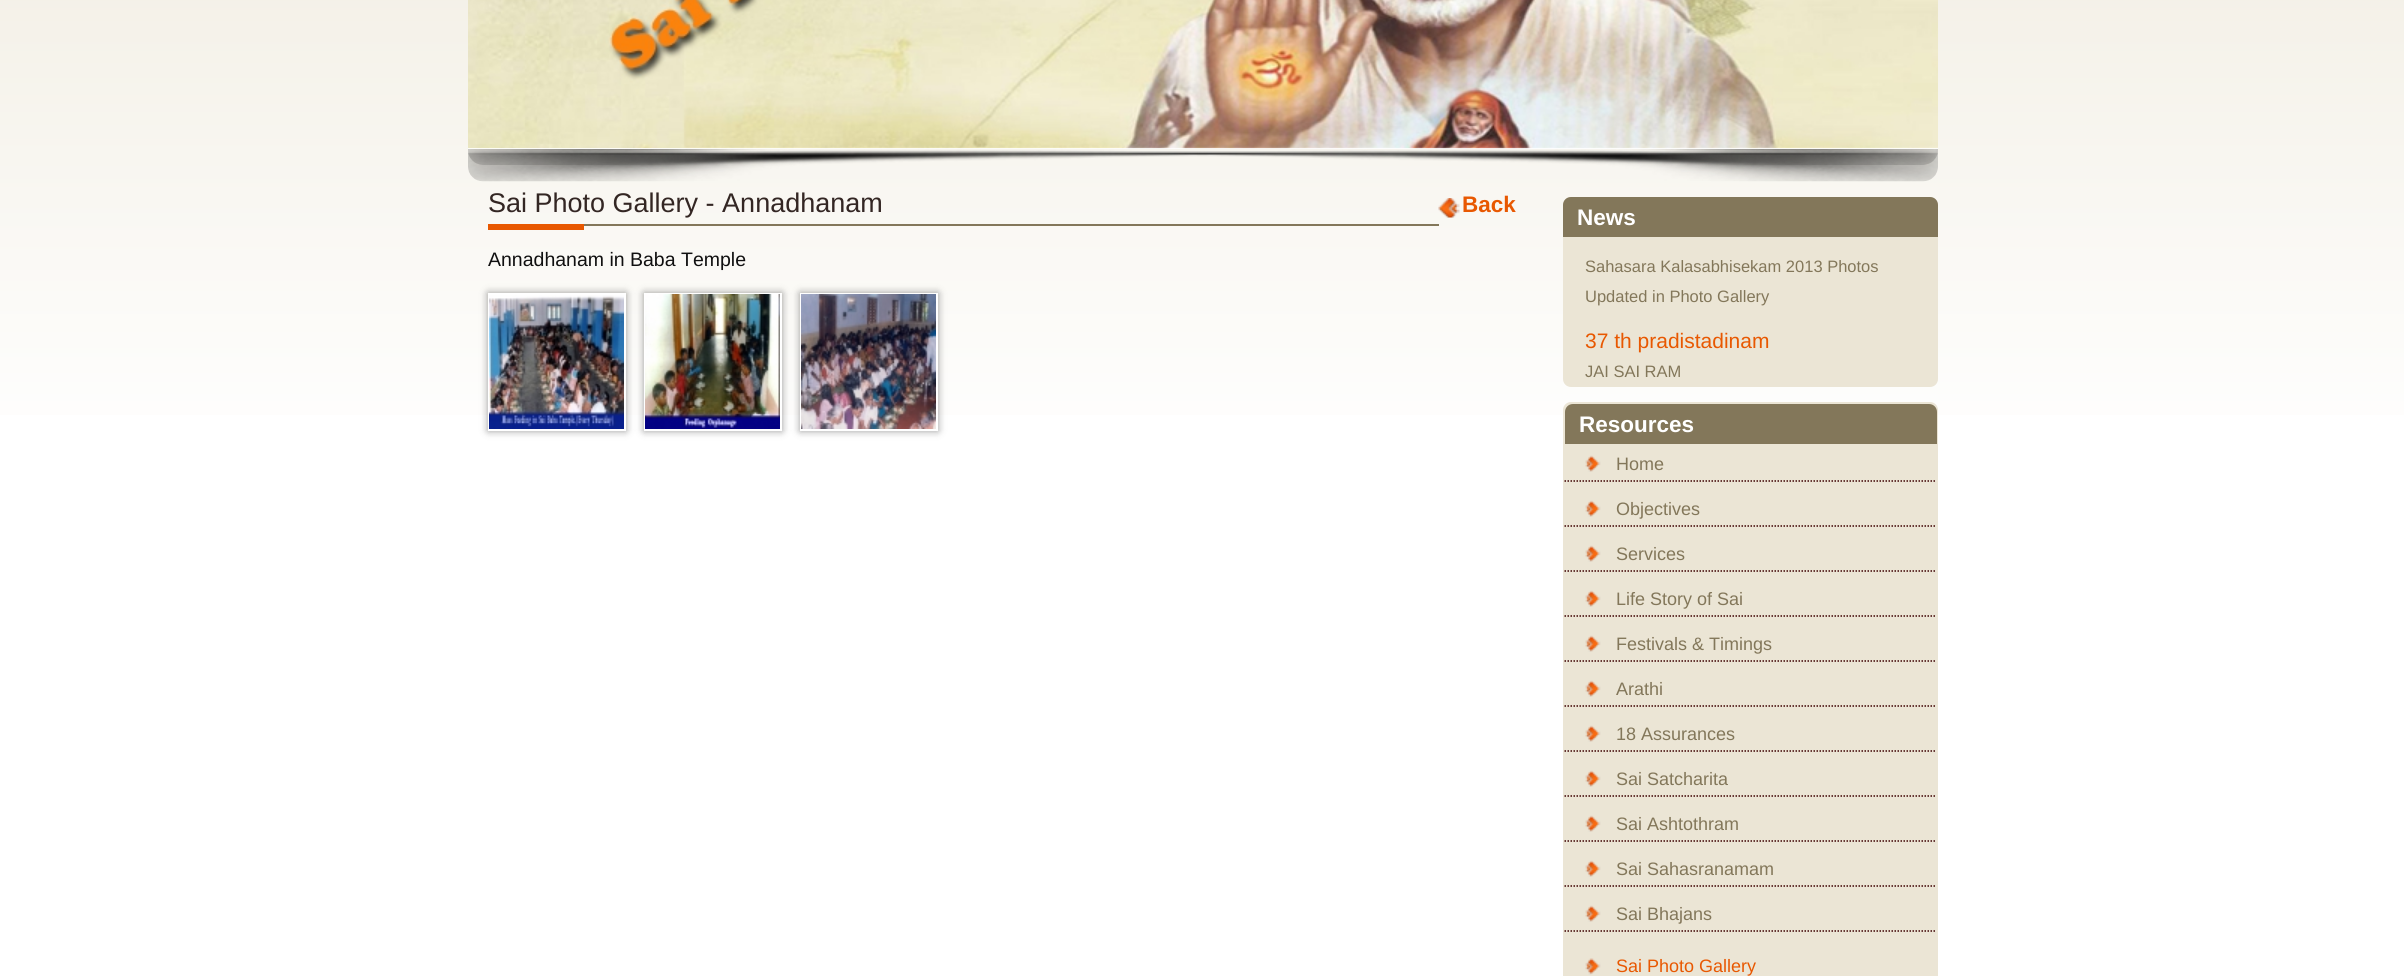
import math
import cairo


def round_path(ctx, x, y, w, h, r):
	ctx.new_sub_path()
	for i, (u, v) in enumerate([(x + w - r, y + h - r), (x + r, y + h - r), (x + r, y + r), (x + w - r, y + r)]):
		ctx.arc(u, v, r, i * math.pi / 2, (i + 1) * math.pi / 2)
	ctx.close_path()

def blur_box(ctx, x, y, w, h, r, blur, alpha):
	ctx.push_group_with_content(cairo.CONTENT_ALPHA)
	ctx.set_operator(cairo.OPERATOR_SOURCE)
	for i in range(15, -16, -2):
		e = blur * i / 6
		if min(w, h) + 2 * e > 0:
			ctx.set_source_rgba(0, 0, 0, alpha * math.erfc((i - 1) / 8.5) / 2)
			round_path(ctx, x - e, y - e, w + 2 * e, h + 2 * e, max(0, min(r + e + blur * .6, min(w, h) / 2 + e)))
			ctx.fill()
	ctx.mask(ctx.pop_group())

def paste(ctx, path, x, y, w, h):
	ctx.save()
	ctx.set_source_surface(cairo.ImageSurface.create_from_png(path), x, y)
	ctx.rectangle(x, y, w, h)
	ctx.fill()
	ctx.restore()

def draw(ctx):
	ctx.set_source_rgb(1, 1, 1)
	ctx.paint()
	gradient = cairo.LinearGradient(1202, -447, 1202, 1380)
	gradient.add_color_stop_rgba(0, 0.918, 0.894, 0.827, 1)
	gradient.add_color_stop_rgba(0.5, 1, 1, 1, 1)
	ctx.set_source(gradient)
	ctx.rectangle(0, 0, 2404, 415)
	ctx.fill()
	paste(ctx, 'media/1.png', 468, 149, 1470, 33)
	paste(ctx, 'media/2.png', 468, 149, 1470, 16)
	ctx.set_source_rgb(1, 1, 1)
	ctx.rectangle(468, 0, 1470, 149)
	ctx.fill()
	paste(ctx, 'media/3.png', 468, 0, 1470, 149)
	ctx.set_source_rgb(0.514, 0.467, 0.353)
	ctx.rectangle(584, 224, 855, 2)
	ctx.fill()
	ctx.select_font_face('Liberation Sans')
	ctx.set_font_size(27)
	ctx.set_source_rgb(0.2, 0.149, 0.137)
	ctx.move_to(488, 212)
	ctx.show_text('Sai Photo Gallery - Annadhanam')
	ctx.set_source_rgb(0.91, 0.345, 0.004)
	ctx.rectangle(488, 224, 96, 6)
	ctx.fill()
	paste(ctx, 'media/4.png', 1438, 198, 22, 20)
	ctx.select_font_face('Liberation Sans', cairo.FONT_SLANT_NORMAL, cairo.FONT_WEIGHT_BOLD)
	ctx.set_font_size(22.5)
	ctx.move_to(1462, 212)
	ctx.show_text('Back')
	ctx.select_font_face('Liberation Sans')
	ctx.set_font_size(19.5)
	ctx.set_source_rgb(0.063, 0.063, 0.063)
	ctx.move_to(488, 266)
	ctx.show_text('Annadhanam in Baba Temple')
	ctx.set_source_rgb(0, 0, 0)
	blur_box(ctx, 488, 293, 138, 138, 0, 4, 0.4)
	blur_box(ctx, 644, 293, 138, 138, 0, 4, 0.4)
	blur_box(ctx, 800, 293, 138, 138, 0, 4, 0.4)
	ctx.rectangle(489, 294, 136, 136)
	ctx.set_source_rgb(1, 1, 1)
	ctx.stroke()
	ctx.rectangle(645, 294, 136, 136)
	ctx.stroke()
	ctx.rectangle(801, 294, 136, 136)
	ctx.stroke()
	paste(ctx, 'media/5.png', 489, 295, 135, 134)
	paste(ctx, 'media/6.png', 645, 294, 135, 135)
	paste(ctx, 'media/7.png', 801, 294, 135, 135)
	ctx.set_source_rgb(0.918, 0.898, 0.835)
	round_path(ctx, 1563, 197, 375, 190, 8)
	ctx.fill()
	ctx.set_source_rgb(0.514, 0.467, 0.353)
	ctx.new_path()
	ctx.move_to(1571, 197)
	ctx.line_to(1930, 197)
	ctx.curve_to(1934.5, 197, 1938, 200.5, 1938, 205)
	ctx.line_to(1938, 237)
	ctx.line_to(1563, 237)
	ctx.line_to(1563, 205)
	ctx.curve_to(1563, 200.5, 1566.5, 197, 1571, 197)
	ctx.close_path()
	ctx.fill()
	ctx.select_font_face('Liberation Sans', cairo.FONT_SLANT_NORMAL, cairo.FONT_WEIGHT_BOLD)
	ctx.set_font_size(22.5)
	ctx.set_source_rgb(1, 1, 1)
	ctx.move_to(1577, 225)
	ctx.show_text('News')
	ctx.select_font_face('Liberation Sans')
	ctx.set_font_size(16.5)
	ctx.set_source_rgb(0.514, 0.467, 0.353)
	ctx.move_to(1585, 272)
	ctx.show_text('Sahasara Kalasabhisekam 2013 Photos')
	ctx.move_to(1585, 302)
	ctx.show_text('Updated in Photo Gallery')
	ctx.set_font_size(21)
	ctx.set_source_rgb(0.91, 0.345, 0.004)
	ctx.move_to(1585, 348)
	ctx.show_text('37 th pradistadinam')
	ctx.set_font_size(16.5)
	ctx.set_source_rgb(0.514, 0.467, 0.353)
	ctx.move_to(1585, 377)
	ctx.show_text('JAI SAI RAM')
	ctx.set_source_rgb(0.918, 0.898, 0.835)
	round_path(ctx, 1563, 402, 375, 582, 8)
	ctx.fill()
	ctx.set_source_rgb(0.514, 0.467, 0.353)
	ctx.new_path()
	ctx.move_to(1573, 404)
	ctx.line_to(1929, 404)
	ctx.curve_to(1933.5, 404, 1937, 407.5, 1937, 412)
	ctx.line_to(1937, 444)
	ctx.line_to(1565, 444)
	ctx.line_to(1565, 412)
	ctx.curve_to(1565, 407.5, 1568.5, 404, 1573, 404)
	ctx.close_path()
	ctx.fill()
	ctx.select_font_face('Liberation Sans', cairo.FONT_SLANT_NORMAL, cairo.FONT_WEIGHT_BOLD)
	ctx.set_font_size(22.5)
	ctx.set_source_rgb(1, 1, 1)
	ctx.move_to(1579, 432)
	ctx.show_text('Resources')
	ctx.new_path()
	ctx.move_to(1564.5, 481)
	ctx.line_to(1936.5, 481)
	ctx.set_source_rgb(0.235, 0, 0)
	ctx.set_line_width(1.5)
	ctx.set_dash([1.5, 1.5])
	ctx.stroke()
	paste(ctx, 'media/8.png', 1585, 455, 16, 17)
	ctx.select_font_face('Liberation Sans')
	ctx.set_font_size(18)
	ctx.set_source_rgb(0.514, 0.467, 0.353)
	ctx.move_to(1616, 470)
	ctx.show_text('Home')
	ctx.new_path()
	ctx.move_to(1564.5, 526)
	ctx.line_to(1936.5, 526)
	ctx.set_source_rgb(0.235, 0, 0)
	ctx.stroke()
	paste(ctx, 'media/8.png', 1585, 500, 16, 17)
	ctx.set_source_rgb(0.514, 0.467, 0.353)
	ctx.move_to(1616, 515)
	ctx.show_text('Objectives')
	ctx.new_path()
	ctx.move_to(1564.5, 571)
	ctx.line_to(1936.5, 571)
	ctx.set_source_rgb(0.235, 0, 0)
	ctx.stroke()
	paste(ctx, 'media/8.png', 1585, 545, 16, 17)
	ctx.set_source_rgb(0.514, 0.467, 0.353)
	ctx.move_to(1616, 560)
	ctx.show_text('Services')
	ctx.new_path()
	ctx.move_to(1564.5, 616)
	ctx.line_to(1936.5, 616)
	ctx.set_source_rgb(0.235, 0, 0)
	ctx.stroke()
	paste(ctx, 'media/8.png', 1585, 590, 16, 17)
	ctx.set_source_rgb(0.514, 0.467, 0.353)
	ctx.move_to(1616, 605)
	ctx.show_text('Life Story of Sai')
	ctx.new_path()
	ctx.move_to(1564.5, 661)
	ctx.line_to(1936.5, 661)
	ctx.set_source_rgb(0.235, 0, 0)
	ctx.stroke()
	paste(ctx, 'media/8.png', 1585, 635, 16, 17)
	ctx.set_source_rgb(0.514, 0.467, 0.353)
	ctx.move_to(1616, 650)
	ctx.show_text('Festivals & Timings')
	ctx.new_path()
	ctx.move_to(1564.5, 706)
	ctx.line_to(1936.5, 706)
	ctx.set_source_rgb(0.235, 0, 0)
	ctx.stroke()
	paste(ctx, 'media/8.png', 1585, 680, 16, 17)
	ctx.set_source_rgb(0.514, 0.467, 0.353)
	ctx.move_to(1616, 695)
	ctx.show_text('Arathi')
	ctx.new_path()
	ctx.move_to(1564.5, 751)
	ctx.line_to(1936.5, 751)
	ctx.set_source_rgb(0.235, 0, 0)
	ctx.stroke()
	paste(ctx, 'media/8.png', 1585, 725, 16, 17)
	ctx.set_source_rgb(0.514, 0.467, 0.353)
	ctx.move_to(1616, 740)
	ctx.show_text('18 Assurances')
	ctx.new_path()
	ctx.move_to(1564.5, 796)
	ctx.line_to(1936.5, 796)
	ctx.set_source_rgb(0.235, 0, 0)
	ctx.stroke()
	paste(ctx, 'media/8.png', 1585, 770, 16, 17)
	ctx.set_source_rgb(0.514, 0.467, 0.353)
	ctx.move_to(1616, 785)
	ctx.show_text('Sai Satcharita')
	ctx.new_path()
	ctx.move_to(1564.5, 841)
	ctx.line_to(1936.5, 841)
	ctx.set_source_rgb(0.235, 0, 0)
	ctx.stroke()
	paste(ctx, 'media/8.png', 1585, 815, 16, 17)
	ctx.set_source_rgb(0.514, 0.467, 0.353)
	ctx.move_to(1616, 830)
	ctx.show_text('Sai Ashtothram')
	ctx.new_path()
	ctx.move_to(1564.5, 886)
	ctx.line_to(1936.5, 886)
	ctx.set_source_rgb(0.235, 0, 0)
	ctx.stroke()
	paste(ctx, 'media/8.png', 1585, 860, 16, 17)
	ctx.set_source_rgb(0.514, 0.467, 0.353)
	ctx.move_to(1616, 875)
	ctx.show_text('Sai Sahasranamam')
	ctx.new_path()
	ctx.move_to(1564.5, 931)
	ctx.line_to(1936.5, 931)
	ctx.set_source_rgb(0.235, 0, 0)
	ctx.stroke()
	paste(ctx, 'media/8.png', 1585, 905, 16, 17)
	ctx.set_source_rgb(0.514, 0.467, 0.353)
	ctx.move_to(1616, 920)
	ctx.show_text('Sai Bhajans')
	paste(ctx, 'media/9.png', 1585, 958, 16, 17)
	ctx.set_source_rgb(0.91, 0.345, 0.004)
	ctx.move_to(1616, 972)
	ctx.show_text('Sai Photo Gallery')


surface = cairo.ImageSurface(cairo.FORMAT_RGB24, 2404, 976)
ctx = cairo.Context(surface)
options = cairo.FontOptions()
options.set_hint_metrics(cairo.HINT_METRICS_OFF)
options.set_hint_style(cairo.HINT_STYLE_NONE)
ctx.set_font_options(options)
ctx.set_miter_limit(4)
draw(ctx)
surface.write_to_png('image.png')
